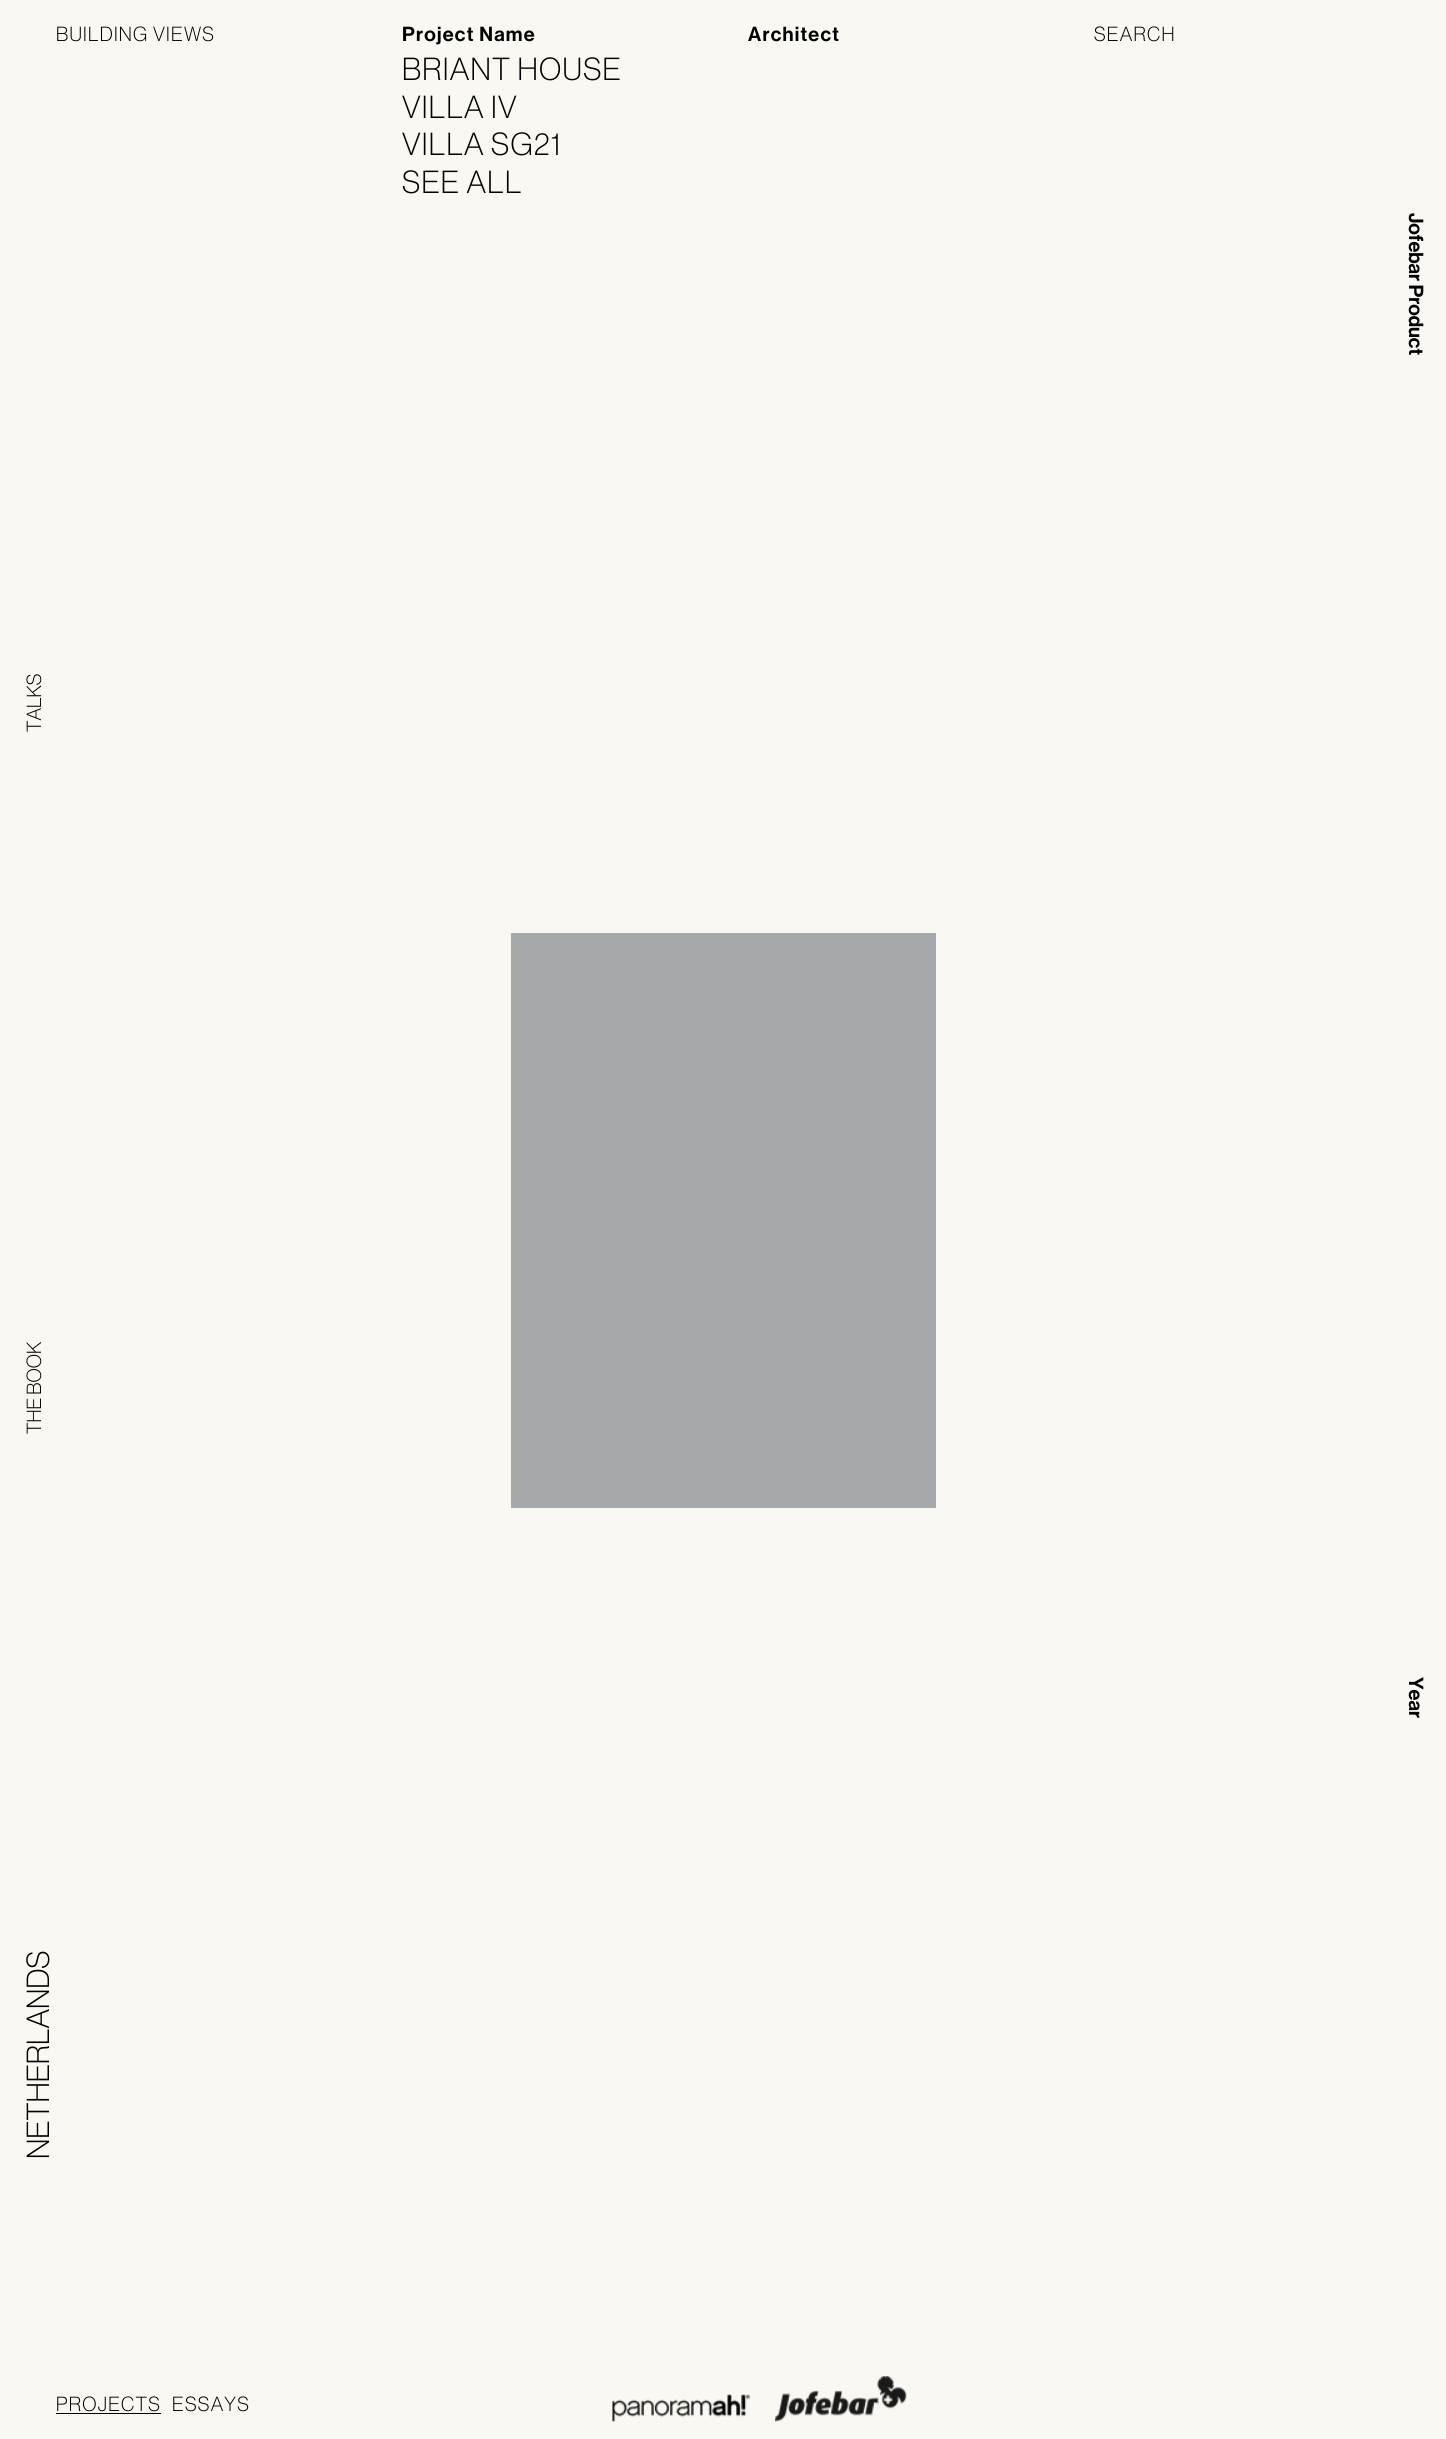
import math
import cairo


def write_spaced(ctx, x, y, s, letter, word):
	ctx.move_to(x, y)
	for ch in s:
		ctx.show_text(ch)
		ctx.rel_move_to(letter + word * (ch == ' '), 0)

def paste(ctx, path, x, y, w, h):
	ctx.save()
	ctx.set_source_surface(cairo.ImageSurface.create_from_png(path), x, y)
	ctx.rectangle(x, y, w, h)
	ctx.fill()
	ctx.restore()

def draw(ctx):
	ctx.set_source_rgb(0.973, 0.969, 0.953)
	ctx.paint()
	ctx.select_font_face('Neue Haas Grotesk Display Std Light')
	ctx.set_font_size(20)
	ctx.set_source_rgb(0, 0, 0)
	write_spaced(ctx, 56, 41, 'BUILDING VIEWS', 1.25, 0)
	ctx.select_font_face('Neue Haas Grotesk Display Std Medium')
	write_spaced(ctx, 402, 41, 'Project Name', 1.25, 0)
	ctx.select_font_face('Neue Haas Grotesk Display Std Light')
	ctx.set_font_size(31.25)
	for x, y, s in [
		(402, 80, 'BRIANT HOUSE'),
		(402, 118, 'VILLA IV'),
		(402, 155, 'VILLA SG21'),
		(402, 193, 'SEE ALL'),
	]:
		write_spaced(ctx, x, y, s, 1.25, 0)
	ctx.select_font_face('Neue Haas Grotesk Display Std Medium')
	ctx.set_font_size(20)
	write_spaced(ctx, 748, 41, 'Architect', 1.25, 0)
	ctx.select_font_face('Neue Haas Grotesk Display Std Light')
	write_spaced(ctx, 1094, 41, 'SEARCH', 1.25, 0)
	ctx.save()
	ctx.translate(41, 732)
	ctx.rotate(-90 * math.pi / 180)
	ctx.move_to(0, 0)
	ctx.show_text('TALKS')
	ctx.restore()
	ctx.save()
	ctx.translate(41, 1434)
	ctx.rotate(-90 * math.pi / 180)
	ctx.move_to(0, 0)
	ctx.show_text('THE BOOK')
	ctx.restore()
	ctx.set_font_size(31.25)
	ctx.save()
	ctx.translate(49, 2159)
	ctx.rotate(-90 * math.pi / 180)
	ctx.move_to(0, 0)
	ctx.show_text('NETHERLANDS')
	ctx.restore()
	ctx.set_source_rgb(0.651, 0.663, 0.671)
	ctx.rectangle(511, 933, 425, 575)
	ctx.fill()
	ctx.select_font_face('Neue Haas Grotesk Display Std Medium')
	ctx.set_font_size(20)
	ctx.set_source_rgb(0, 0, 0)
	ctx.save()
	ctx.translate(1409, 213)
	ctx.rotate(90 * math.pi / 180)
	ctx.move_to(0, 0)
	ctx.show_text('Jofebar Product')
	ctx.restore()
	ctx.save()
	ctx.translate(1409, 1677)
	ctx.rotate(90 * math.pi / 180)
	ctx.move_to(0, 0)
	ctx.show_text('Year')
	ctx.restore()
	ctx.select_font_face('Neue Haas Grotesk Display Std Light')
	write_spaced(ctx, 56, 2411, 'PROJECTS', 1.25, 0)
	ctx.rectangle(56, 2413, 105, 1)
	ctx.fill()
	write_spaced(ctx, 172, 2411, 'ESSAYS', 1.25, 0)
	paste(ctx, 'media/1.png', 612, 2394, 138, 28)
	paste(ctx, 'media/2.png', 775, 2376, 132, 46)


surface = cairo.ImageSurface(cairo.FORMAT_RGB24, 1446, 2439)
ctx = cairo.Context(surface)
options = cairo.FontOptions()
options.set_hint_metrics(cairo.HINT_METRICS_OFF)
options.set_hint_style(cairo.HINT_STYLE_NONE)
ctx.set_font_options(options)
ctx.set_miter_limit(4)
draw(ctx)
surface.write_to_png('image.png')
